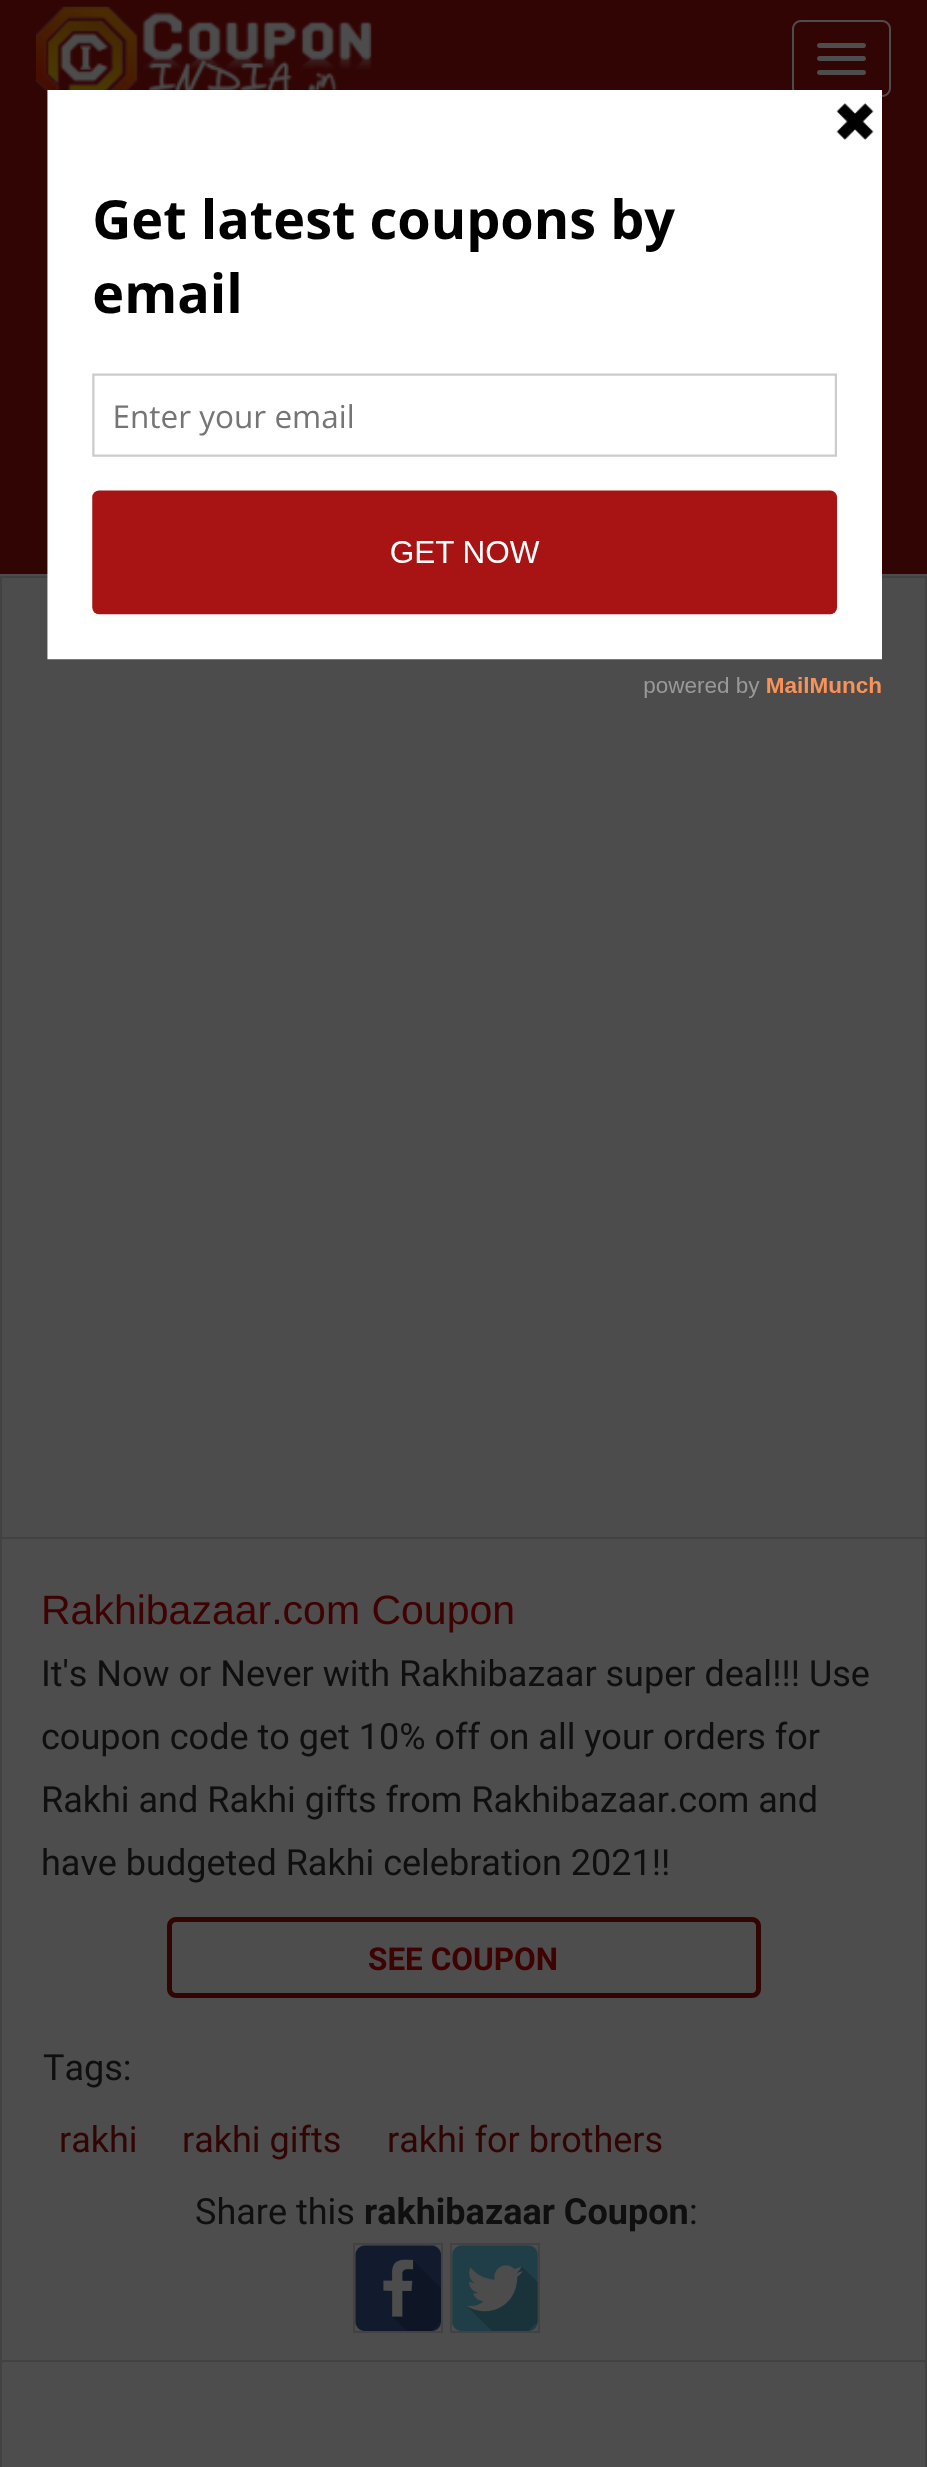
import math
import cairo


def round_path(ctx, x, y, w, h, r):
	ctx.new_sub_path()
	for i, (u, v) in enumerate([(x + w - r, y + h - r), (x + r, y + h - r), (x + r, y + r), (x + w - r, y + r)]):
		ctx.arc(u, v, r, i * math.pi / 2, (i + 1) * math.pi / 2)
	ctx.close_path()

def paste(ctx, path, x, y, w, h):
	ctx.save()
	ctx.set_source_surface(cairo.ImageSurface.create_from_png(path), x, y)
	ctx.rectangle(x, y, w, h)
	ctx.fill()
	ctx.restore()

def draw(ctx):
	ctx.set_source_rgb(0.196, 0.02, 0.02)
	ctx.paint()
	paste(ctx, 'media/1.png', 36, 6, 336, 87)
	round_path(ctx, 793, 21, 97, 75, 8)
	ctx.set_source_rgb(0.302, 0.302, 0.302)
	ctx.stroke()
	round_path(ctx, 817, 43, 49, 5, 2.5)
	ctx.fill()
	round_path(ctx, 817, 56, 49, 5, 2.5)
	ctx.fill()
	round_path(ctx, 817, 70, 49, 5, 2.5)
	ctx.fill()
	ctx.set_source_rgb(0.298, 0.298, 0.298)
	ctx.rectangle(0, 574, 927, 1790)
	ctx.fill()
	ctx.rectangle(1, 577, 925, 961)
	ctx.set_source_rgb(0.259, 0.259, 0.259)
	ctx.stroke()
	paste(ctx, 'media/2.png', 47, 90, 835, 608)
	ctx.set_source_rgb(0.302, 0.302, 0.302)
	round_path(ctx, 0, 1537, 927, 826, 9)
	ctx.fill()
	ctx.rectangle(1, 1538, 925, 824)
	ctx.set_source_rgb(0.259, 0.259, 0.259)
	ctx.stroke()
	ctx.select_font_face('Liberation Sans')
	ctx.set_font_size(41)
	ctx.set_source_rgb(0.243, 0.008, 0.008)
	ctx.move_to(41, 1624)
	ctx.show_text('Rakhibazaar.com Coupon')
	ctx.select_font_face('Roboto')
	ctx.set_font_size(36)
	ctx.set_source_rgb(0.059, 0.059, 0.059)
	for x, y, s in [
		(41, 1686, 'It\'s Now or Never with Rakhibazaar super deal!!! Use'),
		(41, 1749, 'coupon code to get 10% off on all your orders for'),
		(41, 1812, 'Rakhi and Rakhi gifts from Rakhibazaar.com and'),
		(41, 1875, 'have budgeted Rakhi celebration 2021!!'),
	]:
		ctx.move_to(x, y)
		ctx.show_text(s)
	round_path(ctx, 169.5, 1919.5, 589, 76, 6.5)
	ctx.set_source_rgb(0.196, 0.02, 0.02)
	ctx.set_line_width(5)
	ctx.stroke()
	ctx.select_font_face('Roboto', cairo.FONT_SLANT_NORMAL, cairo.FONT_WEIGHT_BOLD)
	ctx.set_font_size(31.5)
	ctx.set_source_rgb(0.243, 0.008, 0.008)
	ctx.move_to(368, 1970)
	ctx.show_text('SEE COUPON')
	ctx.select_font_face('Roboto')
	ctx.set_font_size(36)
	ctx.set_source_rgb(0.059, 0.059, 0.059)
	ctx.move_to(43, 2080)
	ctx.show_text('Tags:')
	ctx.set_source_rgb(0.196, 0.02, 0.02)
	for x, y, s in [
		(59, 2152, 'rakhi'),
		(182, 2152, 'rakhi gifts'),
		(387, 2152, 'rakhi for brothers'),
	]:
		ctx.move_to(x, y)
		ctx.show_text(s)
	ctx.set_source_rgb(0.059, 0.059, 0.059)
	ctx.move_to(195, 2224)
	ctx.show_text('Share this')
	ctx.select_font_face('Roboto', cairo.FONT_SLANT_NORMAL, cairo.FONT_WEIGHT_BOLD)
	ctx.move_to(364, 2224)
	ctx.show_text('rakhibazaar Coupon')
	ctx.select_font_face('Roboto')
	ctx.move_to(689, 2224)
	ctx.show_text(':')
	ctx.rectangle(354, 2244, 88, 88)
	ctx.set_source_rgb(0.259, 0.259, 0.259)
	ctx.set_line_width(2)
	ctx.stroke()
	ctx.rectangle(451, 2244, 88, 88)
	ctx.stroke()
	paste(ctx, 'media/3.png', 355, 2245, 86, 86)
	paste(ctx, 'media/4.png', 452, 2245, 86, 86)
	ctx.set_source_rgb(0.302, 0.302, 0.302)
	round_path(ctx, 0, 2360, 927, 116, 9)
	ctx.fill()
	ctx.rectangle(1, 2361, 925, 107)
	ctx.set_source_rgb(0.259, 0.259, 0.259)
	ctx.stroke()


surface = cairo.ImageSurface(cairo.FORMAT_RGB24, 927, 2467)
ctx = cairo.Context(surface)
options = cairo.FontOptions()
options.set_hint_metrics(cairo.HINT_METRICS_OFF)
options.set_hint_style(cairo.HINT_STYLE_NONE)
ctx.set_font_options(options)
ctx.set_miter_limit(4)
draw(ctx)
surface.write_to_png('image.png')
